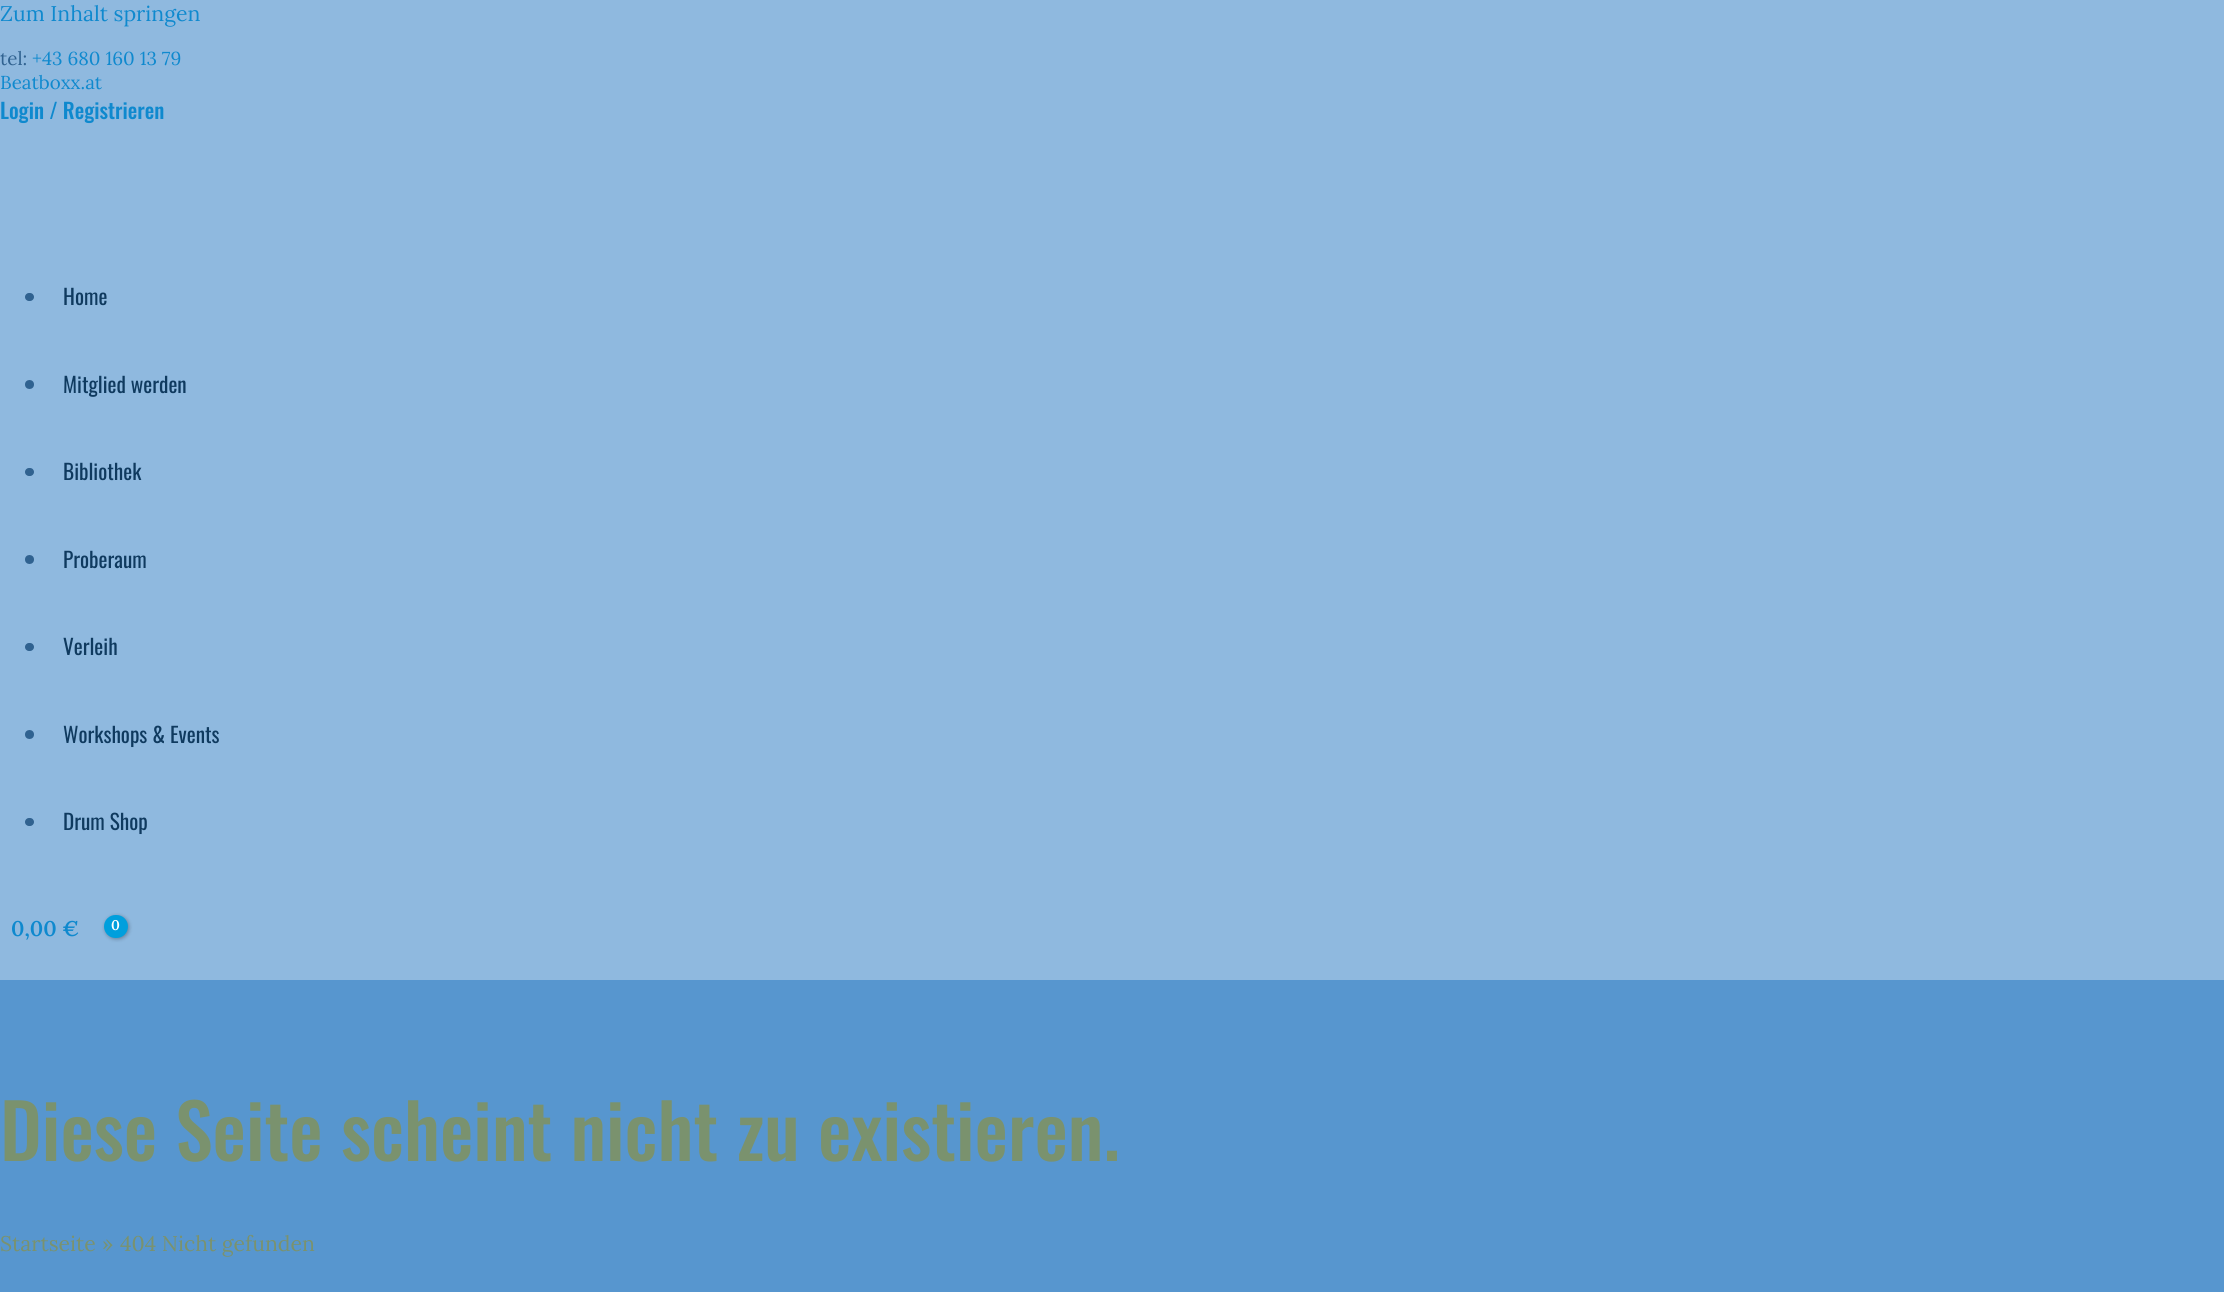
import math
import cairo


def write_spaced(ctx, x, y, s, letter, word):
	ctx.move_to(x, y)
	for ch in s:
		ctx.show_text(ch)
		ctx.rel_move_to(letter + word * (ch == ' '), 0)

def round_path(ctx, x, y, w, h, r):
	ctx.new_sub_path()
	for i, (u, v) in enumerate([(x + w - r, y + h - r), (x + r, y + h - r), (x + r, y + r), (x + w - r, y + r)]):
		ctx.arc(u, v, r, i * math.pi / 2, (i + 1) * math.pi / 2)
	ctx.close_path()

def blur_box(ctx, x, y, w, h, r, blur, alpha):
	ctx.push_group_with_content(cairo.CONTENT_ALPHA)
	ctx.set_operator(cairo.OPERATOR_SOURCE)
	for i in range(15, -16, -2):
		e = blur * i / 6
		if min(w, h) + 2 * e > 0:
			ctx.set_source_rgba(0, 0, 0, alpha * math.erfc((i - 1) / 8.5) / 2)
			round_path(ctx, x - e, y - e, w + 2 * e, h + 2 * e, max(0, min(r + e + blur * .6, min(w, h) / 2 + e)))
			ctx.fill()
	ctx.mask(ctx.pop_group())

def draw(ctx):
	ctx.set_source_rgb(0.561, 0.725, 0.875)
	ctx.paint()
	ctx.select_font_face('Lora')
	ctx.set_font_size(21.25)
	ctx.set_source_rgb(0.059, 0.537, 0.808)
	ctx.move_to(0, 21)
	ctx.show_text('Zum Inhalt springen')
	ctx.set_font_size(18.75)
	ctx.set_source_rgb(0.188, 0.384, 0.565)
	ctx.move_to(0, 65)
	ctx.show_text('tel:')
	ctx.set_source_rgb(0.059, 0.537, 0.808)
	ctx.move_to(32, 65)
	ctx.show_text('+43 680 160 13 79')
	ctx.move_to(0, 89)
	ctx.show_text('Beatboxx.at')
	ctx.select_font_face('Oswald Medium')
	ctx.set_font_size(21.25)
	ctx.move_to(0, 119)
	ctx.show_text('Login / Registrieren')
	ctx.set_source_rgb(0.188, 0.384, 0.565)
	round_path(ctx, 25, 293, 9, 8, 4)
	ctx.fill()
	ctx.select_font_face('Oswald')
	ctx.set_source_rgb(0.059, 0.227, 0.373)
	ctx.move_to(63, 305)
	ctx.show_text('Home')
	ctx.set_source_rgb(0.188, 0.384, 0.565)
	ctx.new_path()
	ctx.arc(29.5, 384.5, 4.5, 0, 2 * math.pi)
	ctx.fill()
	ctx.set_source_rgb(0.059, 0.227, 0.373)
	ctx.move_to(63, 393)
	ctx.show_text('Mitglied werden')
	ctx.set_source_rgb(0.188, 0.384, 0.565)
	round_path(ctx, 25, 468, 9, 8, 4)
	ctx.fill()
	ctx.set_source_rgb(0.059, 0.227, 0.373)
	ctx.move_to(63, 480)
	ctx.show_text('Bibliothek')
	ctx.set_source_rgb(0.188, 0.384, 0.565)
	ctx.new_path()
	ctx.arc(29.5, 559.5, 4.5, 0, 2 * math.pi)
	ctx.fill()
	ctx.set_source_rgb(0.059, 0.227, 0.373)
	ctx.move_to(63, 568)
	ctx.show_text('Proberaum')
	ctx.set_source_rgb(0.188, 0.384, 0.565)
	round_path(ctx, 25, 643, 9, 8, 4)
	ctx.fill()
	ctx.set_source_rgb(0.059, 0.227, 0.373)
	ctx.move_to(63, 655)
	ctx.show_text('Verleih')
	ctx.set_source_rgb(0.188, 0.384, 0.565)
	ctx.new_path()
	ctx.arc(29.5, 734.5, 4.5, 0, 2 * math.pi)
	ctx.fill()
	ctx.set_source_rgb(0.059, 0.227, 0.373)
	ctx.move_to(63, 743)
	ctx.show_text('Workshops & Events')
	ctx.set_source_rgb(0.188, 0.384, 0.565)
	round_path(ctx, 25, 818, 9, 8, 4)
	ctx.fill()
	ctx.set_source_rgb(0.059, 0.227, 0.373)
	ctx.move_to(63, 830)
	ctx.show_text('Drum Shop')
	ctx.select_font_face('Lora SemiBold')
	ctx.set_source_rgb(0.059, 0.537, 0.808)
	ctx.move_to(11, 936)
	ctx.show_text('0,00 €')
	ctx.set_source_rgb(0, 0, 0)
	blur_box(ctx, 105, 916, 24, 23, 11.5, 2, 0.3)
	ctx.set_source_rgb(0, 0.624, 0.867)
	round_path(ctx, 104, 915, 24, 23, 11.5)
	ctx.fill()
	ctx.set_font_size(14)
	ctx.set_source_rgb(1, 1, 1)
	write_spaced(ctx, 111, 930, '0', -1, 0)
	ctx.set_source_rgb(0.341, 0.588, 0.812)
	ctx.rectangle(0, 980, 2224, 312)
	ctx.fill()
	ctx.select_font_face('Oswald Medium')
	ctx.set_font_size(75)
	ctx.set_source_rgb(0.478, 0.573, 0.431)
	ctx.move_to(0, 1161)
	ctx.show_text('Diese Seite scheint nicht zu existieren.')
	ctx.select_font_face('Lora')
	ctx.set_font_size(21.25)
	for x, y, s in [
		(0, 1251, 'Startseite'),
		(102, 1251, '»'),
		(120, 1251, '404 Nicht gefunden'),
	]:
		ctx.move_to(x, y)
		ctx.show_text(s)


surface = cairo.ImageSurface(cairo.FORMAT_RGB24, 2224, 1292)
ctx = cairo.Context(surface)
options = cairo.FontOptions()
options.set_hint_metrics(cairo.HINT_METRICS_OFF)
options.set_hint_style(cairo.HINT_STYLE_NONE)
ctx.set_font_options(options)
ctx.set_miter_limit(4)
draw(ctx)
surface.write_to_png('image.png')
